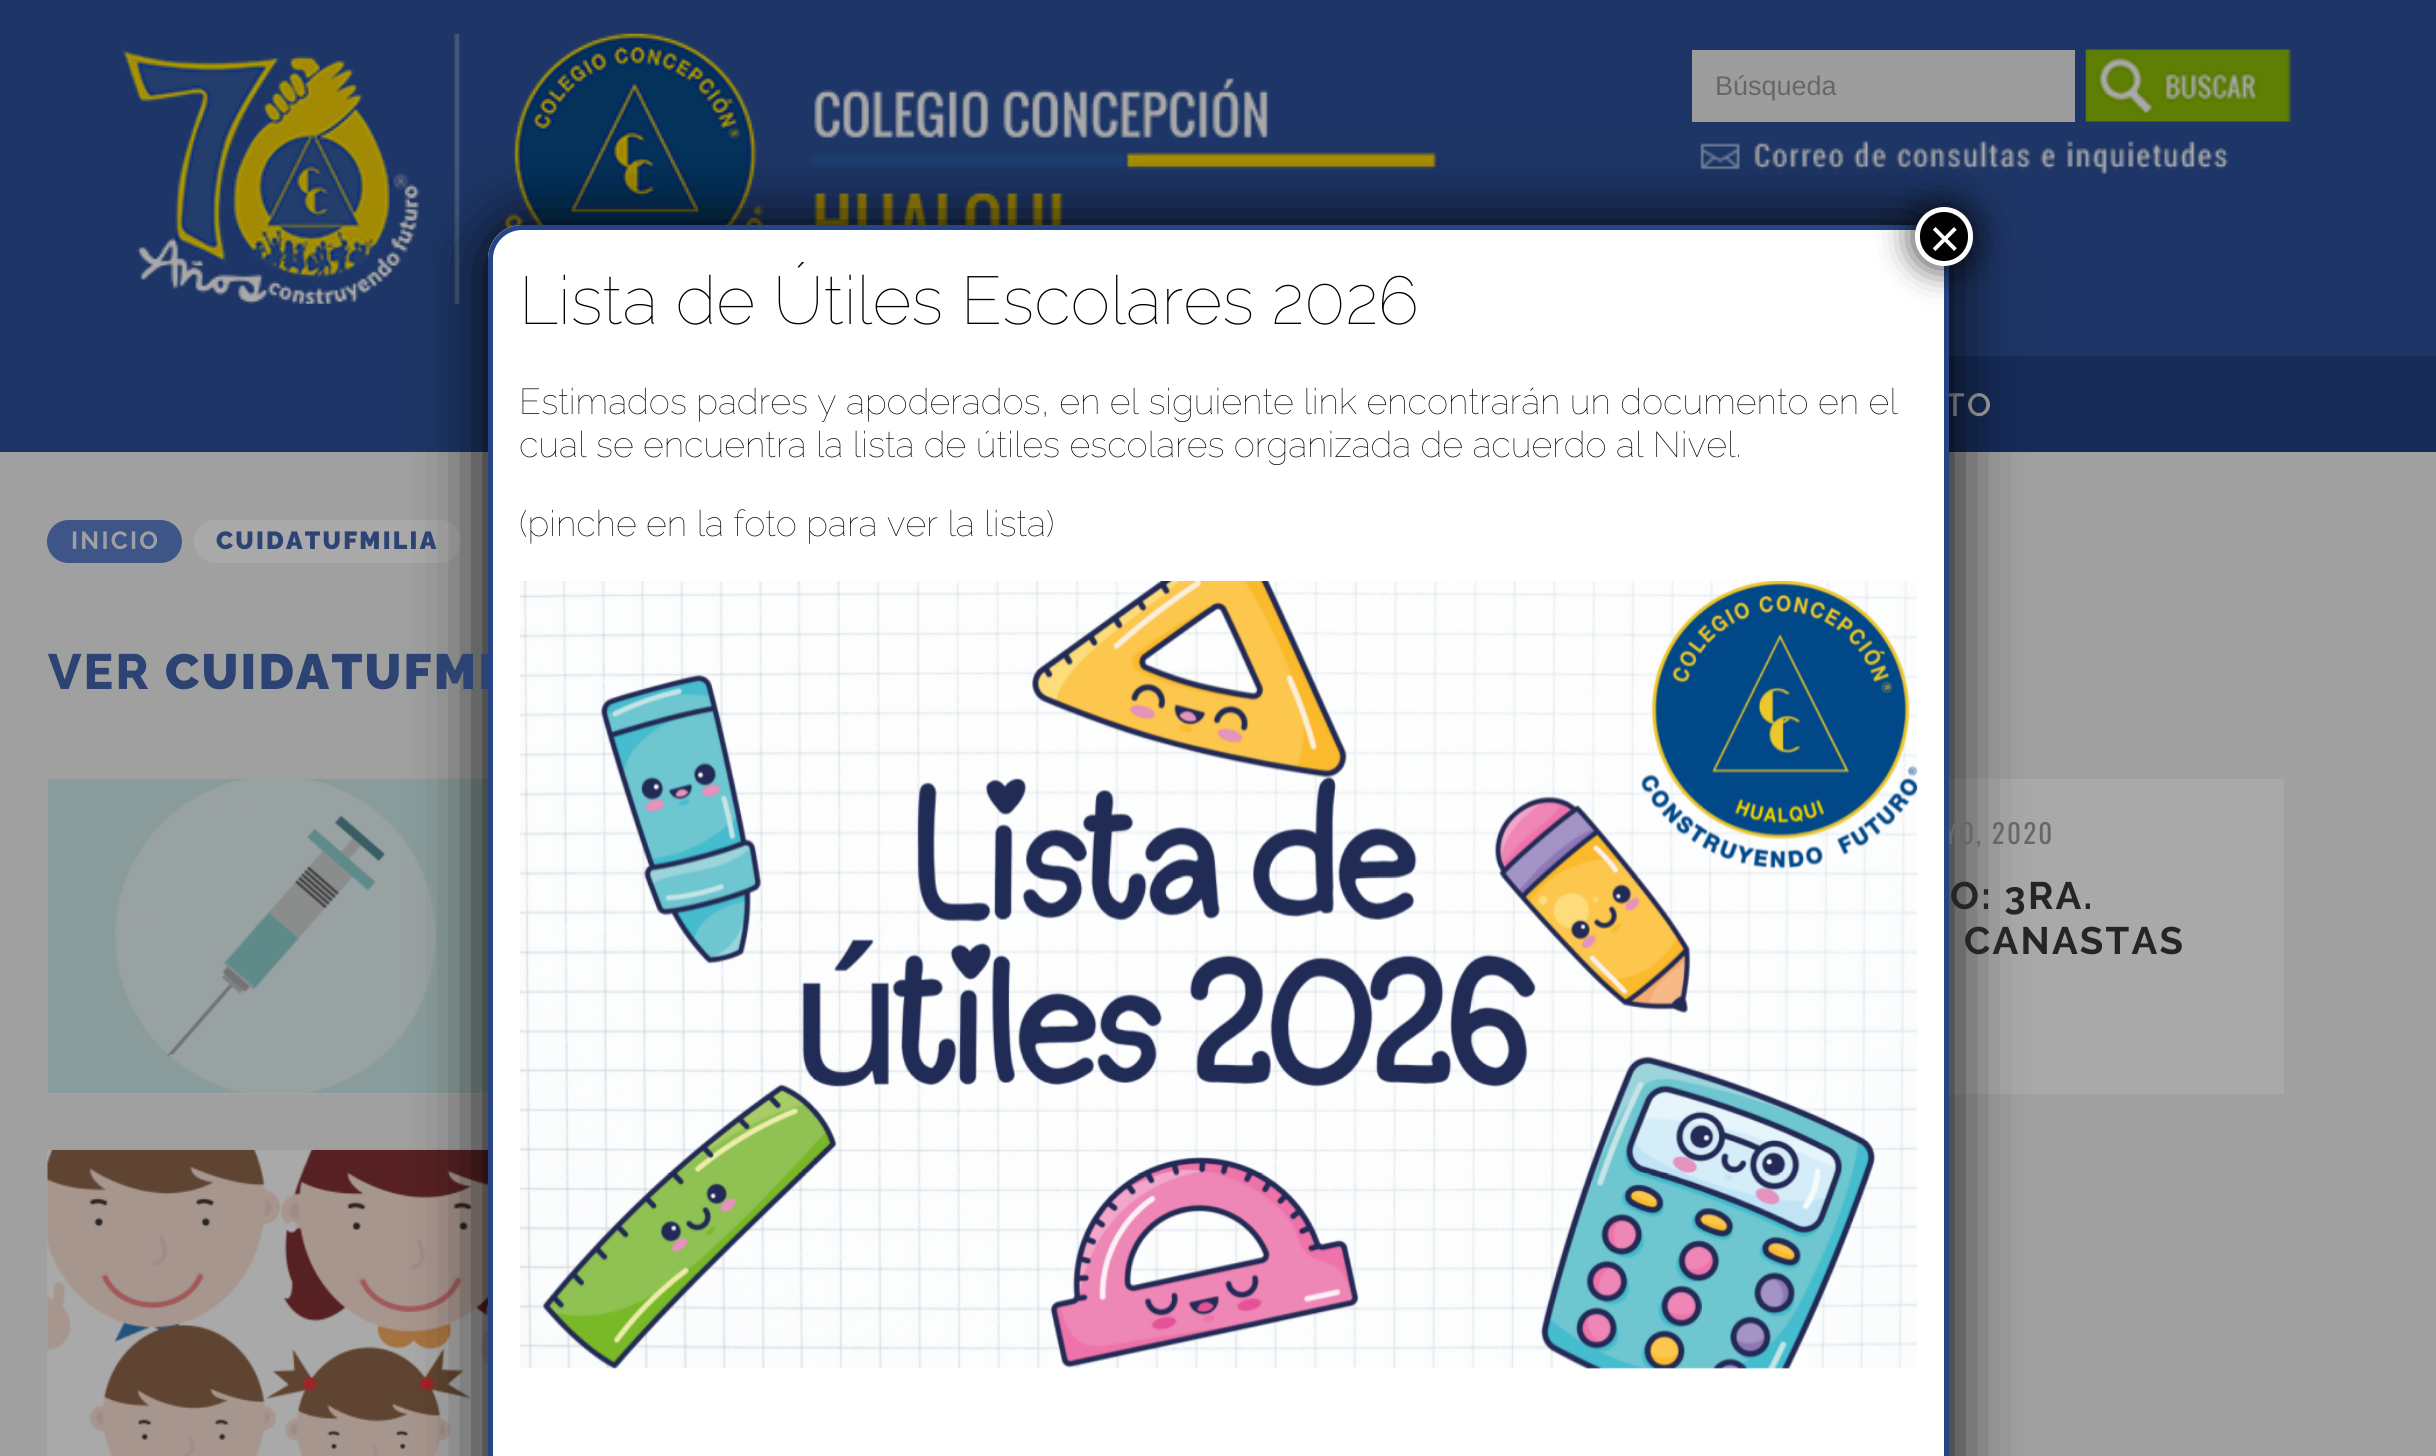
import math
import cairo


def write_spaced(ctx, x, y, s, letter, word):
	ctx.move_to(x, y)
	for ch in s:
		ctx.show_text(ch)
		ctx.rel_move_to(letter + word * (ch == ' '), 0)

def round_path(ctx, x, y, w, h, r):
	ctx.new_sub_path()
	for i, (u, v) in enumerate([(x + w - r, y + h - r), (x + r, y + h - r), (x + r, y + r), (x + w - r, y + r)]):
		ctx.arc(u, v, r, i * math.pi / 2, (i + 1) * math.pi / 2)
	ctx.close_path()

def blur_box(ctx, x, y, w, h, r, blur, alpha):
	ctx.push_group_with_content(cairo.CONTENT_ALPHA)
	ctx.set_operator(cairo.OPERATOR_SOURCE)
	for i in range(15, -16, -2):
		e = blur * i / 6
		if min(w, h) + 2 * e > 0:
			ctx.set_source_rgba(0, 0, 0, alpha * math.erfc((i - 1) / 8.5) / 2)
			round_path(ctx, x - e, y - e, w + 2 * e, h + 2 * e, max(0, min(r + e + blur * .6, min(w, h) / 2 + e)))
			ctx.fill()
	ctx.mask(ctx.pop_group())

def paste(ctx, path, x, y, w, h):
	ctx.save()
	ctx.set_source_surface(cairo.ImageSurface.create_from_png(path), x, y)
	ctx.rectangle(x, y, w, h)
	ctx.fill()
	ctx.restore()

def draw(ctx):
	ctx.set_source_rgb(0.627, 0.627, 0.627)
	ctx.paint()
	ctx.set_source_rgb(0.118, 0.212, 0.404)
	ctx.rectangle(0, 0, 2436, 452)
	ctx.fill()
	paste(ctx, 'media/1.png', 121, 33, 1316, 271)
	ctx.set_source_rgb(0.616, 0.616, 0.616)
	ctx.rectangle(1692, 50, 383, 72)
	ctx.fill()
	ctx.select_font_face('Liberation Sans')
	ctx.set_font_size(27)
	ctx.set_source_rgb(0.404, 0.404, 0.404)
	ctx.move_to(1715, 95)
	ctx.show_text('Búsqueda')
	paste(ctx, 'media/2.png', 2085, 49, 206, 73)
	paste(ctx, 'media/3.png', 1700, 141, 528, 33)
	ctx.set_source_rgb(0.086, 0.169, 0.345)
	ctx.rectangle(1949, 356, 487, 96)
	ctx.fill()
	ctx.select_font_face('Raleway SemiBold')
	ctx.set_font_size(32)
	ctx.set_source_rgb(0.663, 0.663, 0.663)
	write_spaced(ctx, 1945, 416, 'TO', 2.25, 0)
	round_path(ctx, 194, 520, 267, 43, 21.5)
	ctx.fill()
	ctx.rectangle(47, 779, 441, 315)
	ctx.fill()
	paste(ctx, 'media/5.png', 47, 778, 441, 316)
	ctx.rectangle(1949, 779, 335, 315)
	ctx.fill()
	ctx.rectangle(47, 1150, 441, 306)
	ctx.fill()
	paste(ctx, 'media/6.png', 47, 1149, 441, 307)
	ctx.set_source_rgb(0.008, 0.008, 0.008)
	blur_box(ctx, 488, 225, 1461, 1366, 34, 34, 1)
	ctx.select_font_face('Raleway Black')
	ctx.set_font_size(49.5)
	ctx.set_source_rgb(0.173, 0.263, 0.451)
	write_spaced(ctx, 165, 689, 'CUIDATUFMI', 2.25, 0)
	ctx.select_font_face('Oswald')
	ctx.set_font_size(27)
	ctx.set_source_rgb(0.404, 0.404, 0.404)
	write_spaced(ctx, 1944, 844, 'YO, 2020', 2.25, 0)
	ctx.set_source_rgb(1, 1, 1)
	ctx.new_path()
	ctx.move_to(522, 225)
	ctx.line_to(1915, 225)
	ctx.curve_to(1934, 225, 1949, 240, 1949, 259)
	ctx.line_to(1949, 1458)
	ctx.line_to(488, 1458)
	ctx.line_to(488, 259)
	ctx.curve_to(488, 240, 503, 225, 522, 225)
	ctx.close_path()
	ctx.fill()
	round_path(ctx, 490.5, 227.5, 1456, 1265, 31.5)
	ctx.set_source_rgb(0.149, 0.267, 0.525)
	ctx.set_line_width(5)
	ctx.stroke()
	ctx.set_source_rgb(0.008, 0.008, 0.008)
	blur_box(ctx, 1913, 205, 63, 63, 31.5, 17, 0.75)
	ctx.set_source_rgb(0, 0, 0)
	round_path(ctx, 1917.5, 209.5, 53, 54, 26.5)
	ctx.fill_preserve()
	ctx.set_source_rgb(1, 1, 1)
	ctx.stroke()
	ctx.select_font_face('Liberation Sans')
	ctx.set_font_size(54)
	ctx.move_to(1929, 257)
	ctx.show_text('×')
	ctx.select_font_face('Raleway Thin')
	ctx.set_font_size(67.5)
	ctx.set_source_rgb(0, 0, 0)
	ctx.move_to(519, 324)
	ctx.show_text('Lista de Útiles Escolares 2026')
	ctx.set_font_size(36)
	for x, y, s in [
		(519, 414, 'Estimados padres y apoderados, en el siguiente link encontrarán un documento en el'),
		(519, 457, 'cual se encuentra la lista de útiles escolares organizada de acuerdo al Nivel.'),
		(519, 536, '(pinche en la foto para ver la lista)'),
	]:
		ctx.move_to(x, y)
		ctx.show_text(s)
	paste(ctx, 'media/4.png', 519, 581, 1399, 788)
	ctx.set_source_rgb(0.239, 0.333, 0.529)
	round_path(ctx, 47, 520, 135, 43, 21.5)
	ctx.fill()
	ctx.select_font_face('Raleway', cairo.FONT_SLANT_NORMAL, cairo.FONT_WEIGHT_BOLD)
	ctx.set_font_size(24.75)
	ctx.set_source_rgb(0.62, 0.62, 0.643)
	write_spaced(ctx, 71, 549, 'INICIO', 2.25, 0)
	ctx.select_font_face('Raleway Black')
	ctx.set_source_rgb(0.173, 0.263, 0.451)
	write_spaced(ctx, 216, 549, 'CUIDATUFMILIA', 2.25, 0)
	ctx.select_font_face('Raleway ExtraBold')
	ctx.set_font_size(49.5)
	write_spaced(ctx, 48, 689, 'VER', 2.25, 0)
	ctx.select_font_face('Raleway', cairo.FONT_SLANT_NORMAL, cairo.FONT_WEIGHT_BOLD)
	ctx.set_font_size(38.25)
	ctx.set_source_rgb(0.145, 0.145, 0.145)
	write_spaced(ctx, 1950, 909, 'O: 3RA.', 2.25, 0)
	write_spaced(ctx, 1964, 954, 'CANASTAS', 2.25, 0)


surface = cairo.ImageSurface(cairo.FORMAT_RGB24, 2436, 1456)
ctx = cairo.Context(surface)
options = cairo.FontOptions()
options.set_hint_metrics(cairo.HINT_METRICS_OFF)
options.set_hint_style(cairo.HINT_STYLE_NONE)
ctx.set_font_options(options)
ctx.set_miter_limit(4)
draw(ctx)
surface.write_to_png('image.png')
